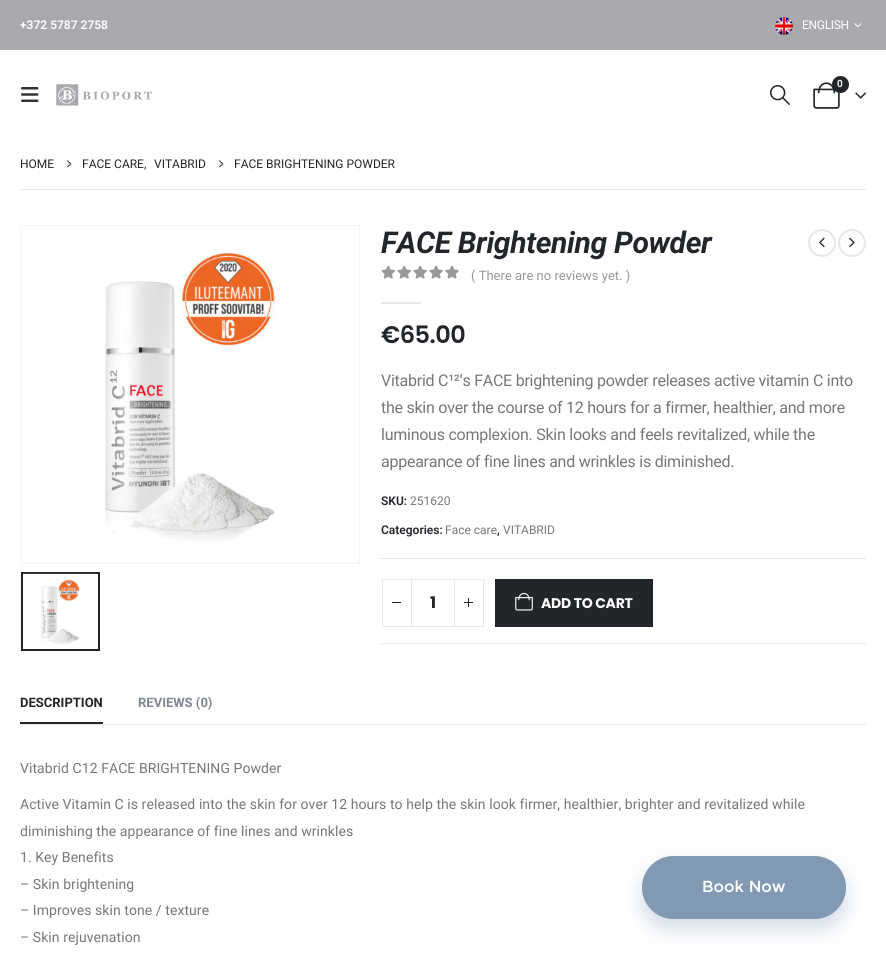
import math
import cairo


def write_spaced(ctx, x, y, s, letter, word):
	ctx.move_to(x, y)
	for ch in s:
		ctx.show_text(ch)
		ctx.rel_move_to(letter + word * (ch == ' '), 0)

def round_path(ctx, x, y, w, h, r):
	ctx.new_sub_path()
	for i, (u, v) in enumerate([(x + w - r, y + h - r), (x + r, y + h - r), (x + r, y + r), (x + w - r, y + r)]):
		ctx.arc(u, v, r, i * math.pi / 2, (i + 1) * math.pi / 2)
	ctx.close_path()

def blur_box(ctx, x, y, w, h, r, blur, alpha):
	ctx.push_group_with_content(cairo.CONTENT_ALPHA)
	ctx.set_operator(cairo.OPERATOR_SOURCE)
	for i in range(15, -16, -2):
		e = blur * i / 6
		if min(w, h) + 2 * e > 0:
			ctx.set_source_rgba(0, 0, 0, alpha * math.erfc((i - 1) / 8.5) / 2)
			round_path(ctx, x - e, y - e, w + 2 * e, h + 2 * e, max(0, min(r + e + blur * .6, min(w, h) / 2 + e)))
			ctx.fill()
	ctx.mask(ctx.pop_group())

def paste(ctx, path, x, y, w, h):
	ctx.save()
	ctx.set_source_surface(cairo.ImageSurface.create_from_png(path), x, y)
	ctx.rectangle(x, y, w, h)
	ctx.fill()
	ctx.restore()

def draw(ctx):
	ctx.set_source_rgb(1, 1, 1)
	ctx.paint()
	ctx.set_source_rgb(0.663, 0.667, 0.682)
	ctx.rectangle(0, 0, 886, 50)
	ctx.fill()
	ctx.select_font_face('Roboto SemiBold')
	ctx.set_font_size(12)
	ctx.set_source_rgb(1, 1, 1)
	ctx.move_to(20, 29)
	ctx.show_text('+372 5787 2758')
	paste(ctx, 'media/1.png', 775, 17, 18, 18)
	ctx.select_font_face('Roboto')
	write_spaced(ctx, 802, 29, 'ENGLISH', -0.3, 0)
	paste(ctx, 'media/2.png', 854, 23, 8, 5)
	paste(ctx, 'media/3.png', 21, 87, 18, 15)
	paste(ctx, 'media/4.png', 56, 84, 97, 22)
	paste(ctx, 'media/5.png', 813, 82, 27, 27)
	ctx.set_source_rgb(0.133, 0.145, 0.161)
	ctx.arc(840.5, 84.5, 8.5, 0, 2 * math.pi)
	ctx.fill()
	ctx.select_font_face('Roboto SemiBold')
	ctx.set_font_size(10)
	ctx.set_source_rgb(1, 1, 1)
	ctx.move_to(837, 87)
	ctx.show_text('0')
	paste(ctx, 'media/6.png', 855, 92, 11, 7)
	paste(ctx, 'media/7.png', 770, 85, 20, 20)
	ctx.select_font_face('Roboto')
	ctx.set_font_size(12)
	ctx.set_source_rgb(0.133, 0.145, 0.161)
	ctx.move_to(20, 168)
	ctx.show_text('HOME')
	paste(ctx, 'media/8.png', 67, 160, 5, 8)
	ctx.move_to(82, 168)
	ctx.show_text('FACE CARE,')
	ctx.move_to(154, 168)
	ctx.show_text('VITABRID')
	paste(ctx, 'media/8.png', 219, 160, 5, 8)
	ctx.move_to(234, 168)
	ctx.show_text('FACE BRIGHTENING POWDER')
	ctx.set_source_rgb(0.906, 0.906, 0.906)
	ctx.rectangle(20, 189, 846, 1)
	ctx.fill()
	ctx.rectangle(21.5, 225.5, 338, 338)
	ctx.set_source_rgb(0.957, 0.957, 0.957)
	ctx.set_line_width(1)
	ctx.stroke()
	paste(ctx, 'media/9.png', 104, 248, 172, 294)
	ctx.rectangle(22, 573, 77, 77)
	ctx.set_source_rgb(0.133, 0.145, 0.161)
	ctx.set_line_width(2)
	ctx.stroke()
	paste(ctx, 'media/10.png', 23, 573, 75, 72)
	ctx.select_font_face('Roboto', cairo.FONT_SLANT_ITALIC, cairo.FONT_WEIGHT_BOLD)
	ctx.set_font_size(30)
	write_spaced(ctx, 381, 253, 'FACE Brightening Powder', -0.3, 0)
	ctx.new_path()
	ctx.arc(822, 243, 13, 0, 2 * math.pi)
	ctx.set_source_rgb(0.906, 0.906, 0.906)
	ctx.stroke()
	paste(ctx, 'media/11.png', 819, 237, 6, 11)
	ctx.arc(852, 243, 13, 0, 2 * math.pi)
	ctx.stroke()
	paste(ctx, 'media/12.png', 849, 237, 6, 11)
	paste(ctx, 'media/13.png', 381, 265, 78, 14)
	ctx.select_font_face('Roboto')
	ctx.set_font_size(13)
	ctx.set_source_rgb(0.6, 0.6, 0.6)
	ctx.move_to(471, 280)
	ctx.show_text('( There are no reviews yet. )')
	ctx.set_source_rgb(0.906, 0.906, 0.906)
	ctx.rectangle(381, 302, 40, 2)
	ctx.fill()
	ctx.select_font_face('Poppins SemiBold')
	ctx.set_font_size(24)
	ctx.set_source_rgb(0.133, 0.145, 0.161)
	write_spaced(ctx, 381, 343, '€65.00', -0.5, 0)
	ctx.select_font_face('Roboto')
	ctx.set_font_size(16)
	ctx.set_source_rgb(0.467, 0.467, 0.467)
	for x, y, s in [
		(381, 386, 'Vitabrid C¹²‘s FACE brightening powder releases active vitamin C into'),
		(381, 413, 'the skin over the course of 12 hours for a firmer, healthier, and more'),
		(381, 440, 'luminous complexion. Skin looks and feels revitalized, while the'),
		(381, 467, 'appearance of fine lines and wrinkles is diminished.'),
	]:
		write_spaced(ctx, x, y, s, -0.25, 0)
	ctx.select_font_face('Roboto SemiBold')
	ctx.set_font_size(12)
	ctx.set_source_rgb(0.133, 0.145, 0.161)
	ctx.move_to(381, 505)
	ctx.show_text('SKU:')
	ctx.select_font_face('Roboto')
	ctx.set_source_rgb(0.467, 0.467, 0.467)
	ctx.move_to(410, 505)
	ctx.show_text('251620')
	ctx.select_font_face('Roboto SemiBold')
	ctx.set_source_rgb(0.133, 0.145, 0.161)
	ctx.move_to(381, 534)
	ctx.show_text('Categories:')
	ctx.select_font_face('Roboto')
	ctx.set_source_rgb(0.467, 0.467, 0.467)
	ctx.move_to(445, 534)
	ctx.show_text('Face care')
	ctx.select_font_face('Roboto SemiBold')
	ctx.set_source_rgb(0.133, 0.145, 0.161)
	ctx.move_to(497, 534)
	ctx.show_text(',')
	ctx.select_font_face('Roboto')
	ctx.set_source_rgb(0.467, 0.467, 0.467)
	ctx.move_to(503, 534)
	ctx.show_text('VITABRID')
	ctx.set_source_rgb(0.906, 0.906, 0.906)
	ctx.rectangle(381, 558, 485, 1)
	ctx.rectangle(381, 643, 485, 1)
	ctx.rectangle(411, 579, 44, 1)
	ctx.rectangle(411, 626, 44, 1)
	ctx.fill()
	ctx.rectangle(382.5, 579.5, 29, 47)
	ctx.set_line_width(1)
	ctx.stroke()
	ctx.set_source_rgb(0.133, 0.145, 0.161)
	ctx.rectangle(392, 602, 9, 1)
	ctx.fill()
	ctx.select_font_face('Poppins', cairo.FONT_SLANT_NORMAL, cairo.FONT_WEIGHT_BOLD)
	ctx.set_font_size(16)
	ctx.move_to(430, 608)
	ctx.show_text('1')
	ctx.rectangle(454.5, 579.5, 29, 47)
	ctx.set_source_rgb(0.906, 0.906, 0.906)
	ctx.stroke()
	ctx.set_source_rgb(0.133, 0.145, 0.161)
	ctx.rectangle(464, 602, 9, 1)
	ctx.rectangle(468, 598, 1, 9)
	ctx.rectangle(495, 579, 158, 48)
	ctx.fill()
	paste(ctx, 'media/14.png', 515, 592, 18, 19)
	ctx.set_font_size(14)
	ctx.set_source_rgb(1, 1, 1)
	write_spaced(ctx, 541, 608, 'ADD TO CART', -0.25, 0)
	ctx.set_source_rgb(0.133, 0.145, 0.161)
	ctx.rectangle(20, 722, 83, 2)
	ctx.fill()
	ctx.select_font_face('Roboto', cairo.FONT_SLANT_NORMAL, cairo.FONT_WEIGHT_BOLD)
	ctx.set_font_size(13)
	ctx.move_to(20, 707)
	ctx.show_text('DESCRIPTION')
	ctx.set_source_rgb(0.506, 0.525, 0.573)
	ctx.move_to(138, 707)
	ctx.show_text('REVIEWS (0)')
	ctx.set_source_rgb(0.906, 0.906, 0.906)
	ctx.rectangle(20, 724, 846, 1)
	ctx.fill()
	ctx.select_font_face('Roboto')
	ctx.set_font_size(14)
	ctx.set_source_rgb(0.467, 0.467, 0.467)
	for x, y, s in [
		(20, 773, 'Vitabrid C12 FACE BRIGHTENING Powder'),
		(20, 809, 'Active Vitamin C is released into the skin for over 12 hours to help the skin look firmer, healthier, brighter and revitalized while'),
		(20, 836, 'diminishing the appearance of fine lines and wrinkles'),
		(20, 862, '1. Key Benefits'),
		(20, 889, '– Skin brightening'),
		(20, 915, '– Improves skin tone / texture'),
		(20, 942, '– Skin rejuvenation'),
	]:
		write_spaced(ctx, x, y, s, 0.07, 0)
	ctx.set_source_rgb(0.51, 0.6, 0.706)
	blur_box(ctx, 642, 866, 204, 63, 31.5, 10, 0.35)
	ctx.set_source_rgb(0.51, 0.6, 0.706)
	round_path(ctx, 642, 856, 204, 63, 31.5)
	ctx.fill()
	ctx.select_font_face('Gotham Medium')
	ctx.set_font_size(16)
	ctx.set_source_rgb(1, 1, 1)
	ctx.move_to(702, 892)
	ctx.show_text('Book Now')


surface = cairo.ImageSurface(cairo.FORMAT_RGB24, 886, 959)
ctx = cairo.Context(surface)
options = cairo.FontOptions()
options.set_hint_metrics(cairo.HINT_METRICS_OFF)
options.set_hint_style(cairo.HINT_STYLE_NONE)
ctx.set_font_options(options)
ctx.set_miter_limit(4)
draw(ctx)
surface.write_to_png('image.png')
